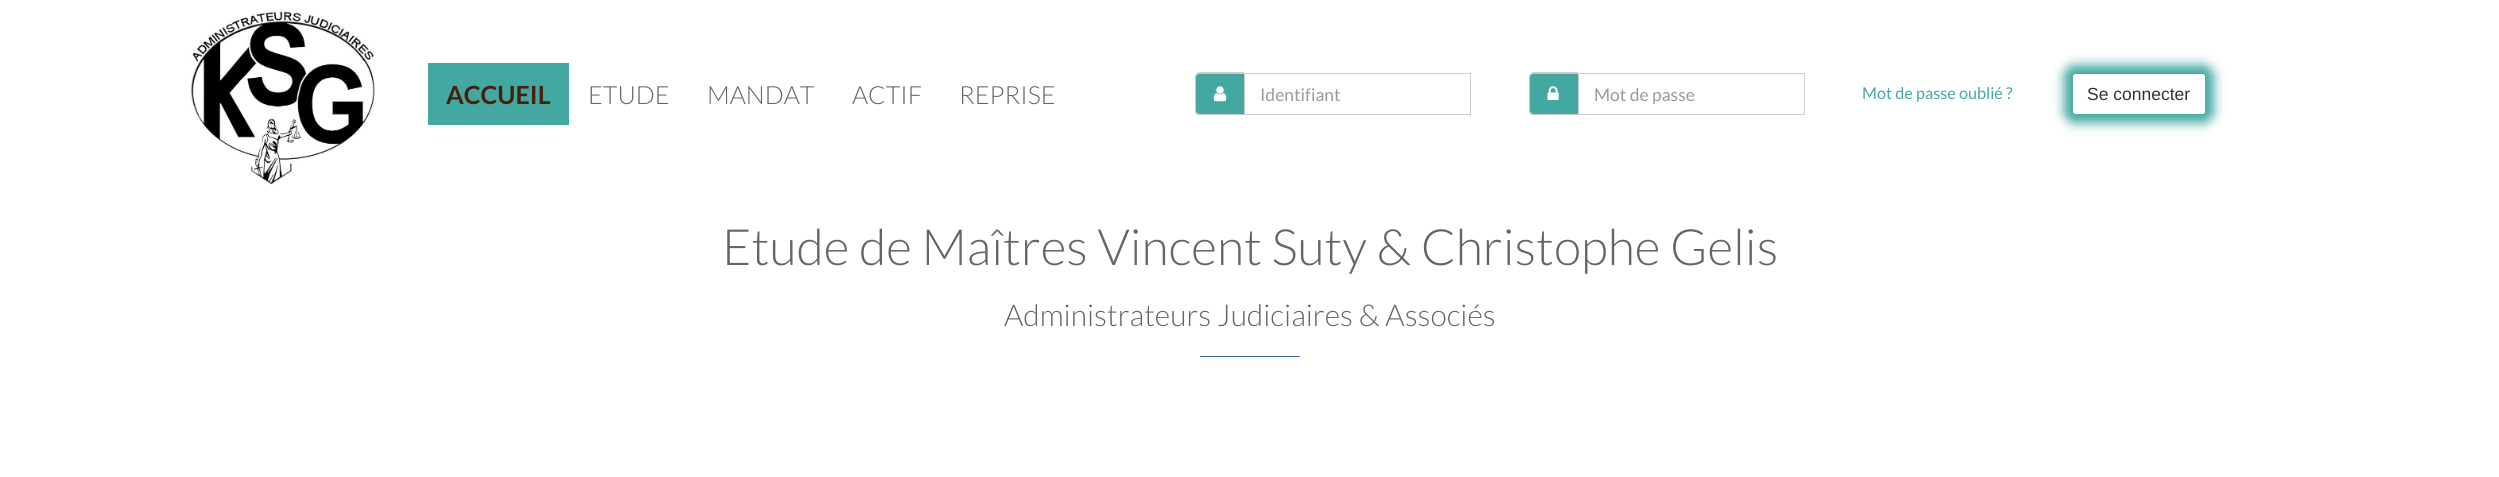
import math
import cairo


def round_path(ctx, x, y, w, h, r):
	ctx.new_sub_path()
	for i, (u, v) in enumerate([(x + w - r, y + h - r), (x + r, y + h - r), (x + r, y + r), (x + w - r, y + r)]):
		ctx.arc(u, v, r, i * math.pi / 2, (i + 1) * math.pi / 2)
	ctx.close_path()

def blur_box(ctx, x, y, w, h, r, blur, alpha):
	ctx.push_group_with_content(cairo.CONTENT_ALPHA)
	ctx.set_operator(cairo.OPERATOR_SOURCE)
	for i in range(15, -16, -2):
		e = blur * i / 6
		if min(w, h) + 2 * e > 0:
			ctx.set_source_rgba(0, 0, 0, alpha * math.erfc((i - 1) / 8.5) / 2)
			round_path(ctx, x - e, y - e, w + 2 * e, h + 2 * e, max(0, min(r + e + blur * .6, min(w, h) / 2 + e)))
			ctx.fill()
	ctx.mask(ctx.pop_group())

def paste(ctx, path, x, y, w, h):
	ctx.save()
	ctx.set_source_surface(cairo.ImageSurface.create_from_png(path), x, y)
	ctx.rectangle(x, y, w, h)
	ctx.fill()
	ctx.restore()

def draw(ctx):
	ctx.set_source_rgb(1, 1, 1)
	ctx.paint()
	paste(ctx, 'media/1.png', 190, 11, 185, 174)
	ctx.set_source_rgb(0.259, 0.659, 0.631)
	ctx.rectangle(428, 63, 141, 62)
	ctx.fill()
	ctx.select_font_face('Lato', cairo.FONT_SLANT_NORMAL, cairo.FONT_WEIGHT_BOLD)
	ctx.set_font_size(25)
	ctx.set_source_rgb(0.278, 0.125, 0.051)
	ctx.move_to(446, 104)
	ctx.show_text('ACCUEIL')
	ctx.select_font_face('Lato Light')
	ctx.set_source_rgb(0.396, 0.396, 0.396)
	for x, y, s in [
		(588, 104, 'ETUDE'),
		(707, 104, 'MANDAT'),
		(852, 104, 'ACTIF'),
		(959, 104, 'REPRISE'),
	]:
		ctx.move_to(x, y)
		ctx.show_text(s)
	ctx.set_source_rgb(0.259, 0.659, 0.631)
	ctx.new_path()
	ctx.move_to(1200, 73)
	ctx.line_to(1244, 73)
	ctx.line_to(1244, 115)
	ctx.line_to(1200, 115)
	ctx.curve_to(1197, 115, 1195, 113, 1195, 110)
	ctx.line_to(1195, 78)
	ctx.curve_to(1195, 75, 1197, 73, 1200, 73)
	ctx.close_path()
	ctx.fill()
	ctx.set_source_rgb(0.8, 0.8, 0.8)
	ctx.set_fill_rule(cairo.FILL_RULE_EVEN_ODD)
	ctx.new_path()
	ctx.move_to(1200, 72)
	ctx.line_to(1244, 72)
	ctx.line_to(1244, 115)
	ctx.line_to(1200, 115)
	ctx.curve_to(1197, 115, 1195, 113, 1195, 110)
	ctx.line_to(1195, 78)
	ctx.curve_to(1195, 75, 1197, 72, 1200, 72)
	ctx.close_path()
	ctx.move_to(1200, 74)
	ctx.line_to(1244, 74)
	ctx.line_to(1244, 114)
	ctx.line_to(1200, 114)
	ctx.curve_to(1198, 114, 1196, 112, 1196, 110)
	ctx.line_to(1196, 78)
	ctx.curve_to(1196, 75, 1198, 74, 1200, 74)
	ctx.close_path()
	ctx.fill()
	paste(ctx, 'media/2.png', 1213, 86, 14, 16)
	ctx.rectangle(1244.5, 73.5, 226, 41)
	ctx.set_line_width(1)
	ctx.stroke()
	ctx.select_font_face('Lato')
	ctx.set_font_size(17.5)
	ctx.set_source_rgb(0.6, 0.6, 0.6)
	ctx.move_to(1260, 101)
	ctx.show_text('Identifiant')
	ctx.set_source_rgb(0.259, 0.659, 0.631)
	ctx.new_path()
	ctx.move_to(1534, 73)
	ctx.line_to(1578, 73)
	ctx.line_to(1578, 115)
	ctx.line_to(1534, 115)
	ctx.curve_to(1531, 115, 1529, 113, 1529, 110)
	ctx.line_to(1529, 78)
	ctx.curve_to(1529, 75, 1531, 73, 1534, 73)
	ctx.close_path()
	ctx.fill()
	ctx.set_source_rgb(0.8, 0.8, 0.8)
	ctx.new_path()
	ctx.move_to(1534, 72)
	ctx.line_to(1578, 72)
	ctx.line_to(1578, 115)
	ctx.line_to(1534, 115)
	ctx.curve_to(1531, 115, 1529, 113, 1529, 110)
	ctx.line_to(1529, 78)
	ctx.curve_to(1529, 75, 1531, 72, 1534, 72)
	ctx.close_path()
	ctx.move_to(1534, 74)
	ctx.line_to(1578, 74)
	ctx.line_to(1578, 114)
	ctx.line_to(1534, 114)
	ctx.curve_to(1532, 114, 1530, 112, 1530, 110)
	ctx.line_to(1530, 78)
	ctx.curve_to(1530, 75, 1532, 74, 1534, 74)
	ctx.close_path()
	ctx.fill()
	paste(ctx, 'media/3.png', 1547, 86, 12, 14)
	ctx.rectangle(1578.5, 73.5, 226, 41)
	ctx.stroke()
	ctx.set_source_rgb(0.6, 0.6, 0.6)
	ctx.move_to(1594, 101)
	ctx.show_text('Mot de passe')
	ctx.set_font_size(16.25)
	ctx.set_source_rgb(0.259, 0.659, 0.631)
	ctx.move_to(1862, 99)
	ctx.show_text('Mot de passe oublié ?')
	ctx.set_source_rgb(0.259, 0.659, 0.631)
	blur_box(ctx, 2064, 65, 150, 58, 11, 5.5, 1)
	ctx.set_source_rgb(1, 1, 1)
	round_path(ctx, 2073, 74, 132, 40, 2.5)
	ctx.fill()
	ctx.select_font_face('Liberation Sans')
	ctx.set_font_size(17.5)
	ctx.set_source_rgb(0.2, 0.2, 0.2)
	ctx.move_to(2087, 100)
	ctx.show_text('Se connecter')
	ctx.select_font_face('Lato Light')
	ctx.set_font_size(50)
	ctx.set_source_rgb(0.396, 0.396, 0.396)
	ctx.move_to(722, 265)
	ctx.show_text('Etude de Maîtres Vincent Suty & Christophe Gelis')
	ctx.set_font_size(30)
	ctx.move_to(1004, 326)
	ctx.show_text('Administrateurs Judiciaires & Associés')
	ctx.set_source_rgb(0.251, 0.427, 0.643)
	ctx.rectangle(1200, 356, 100, 1)
	ctx.fill()


surface = cairo.ImageSurface(cairo.FORMAT_RGB24, 2499, 477)
ctx = cairo.Context(surface)
options = cairo.FontOptions()
options.set_hint_metrics(cairo.HINT_METRICS_OFF)
options.set_hint_style(cairo.HINT_STYLE_NONE)
ctx.set_font_options(options)
ctx.set_miter_limit(4)
draw(ctx)
surface.write_to_png('image.png')
